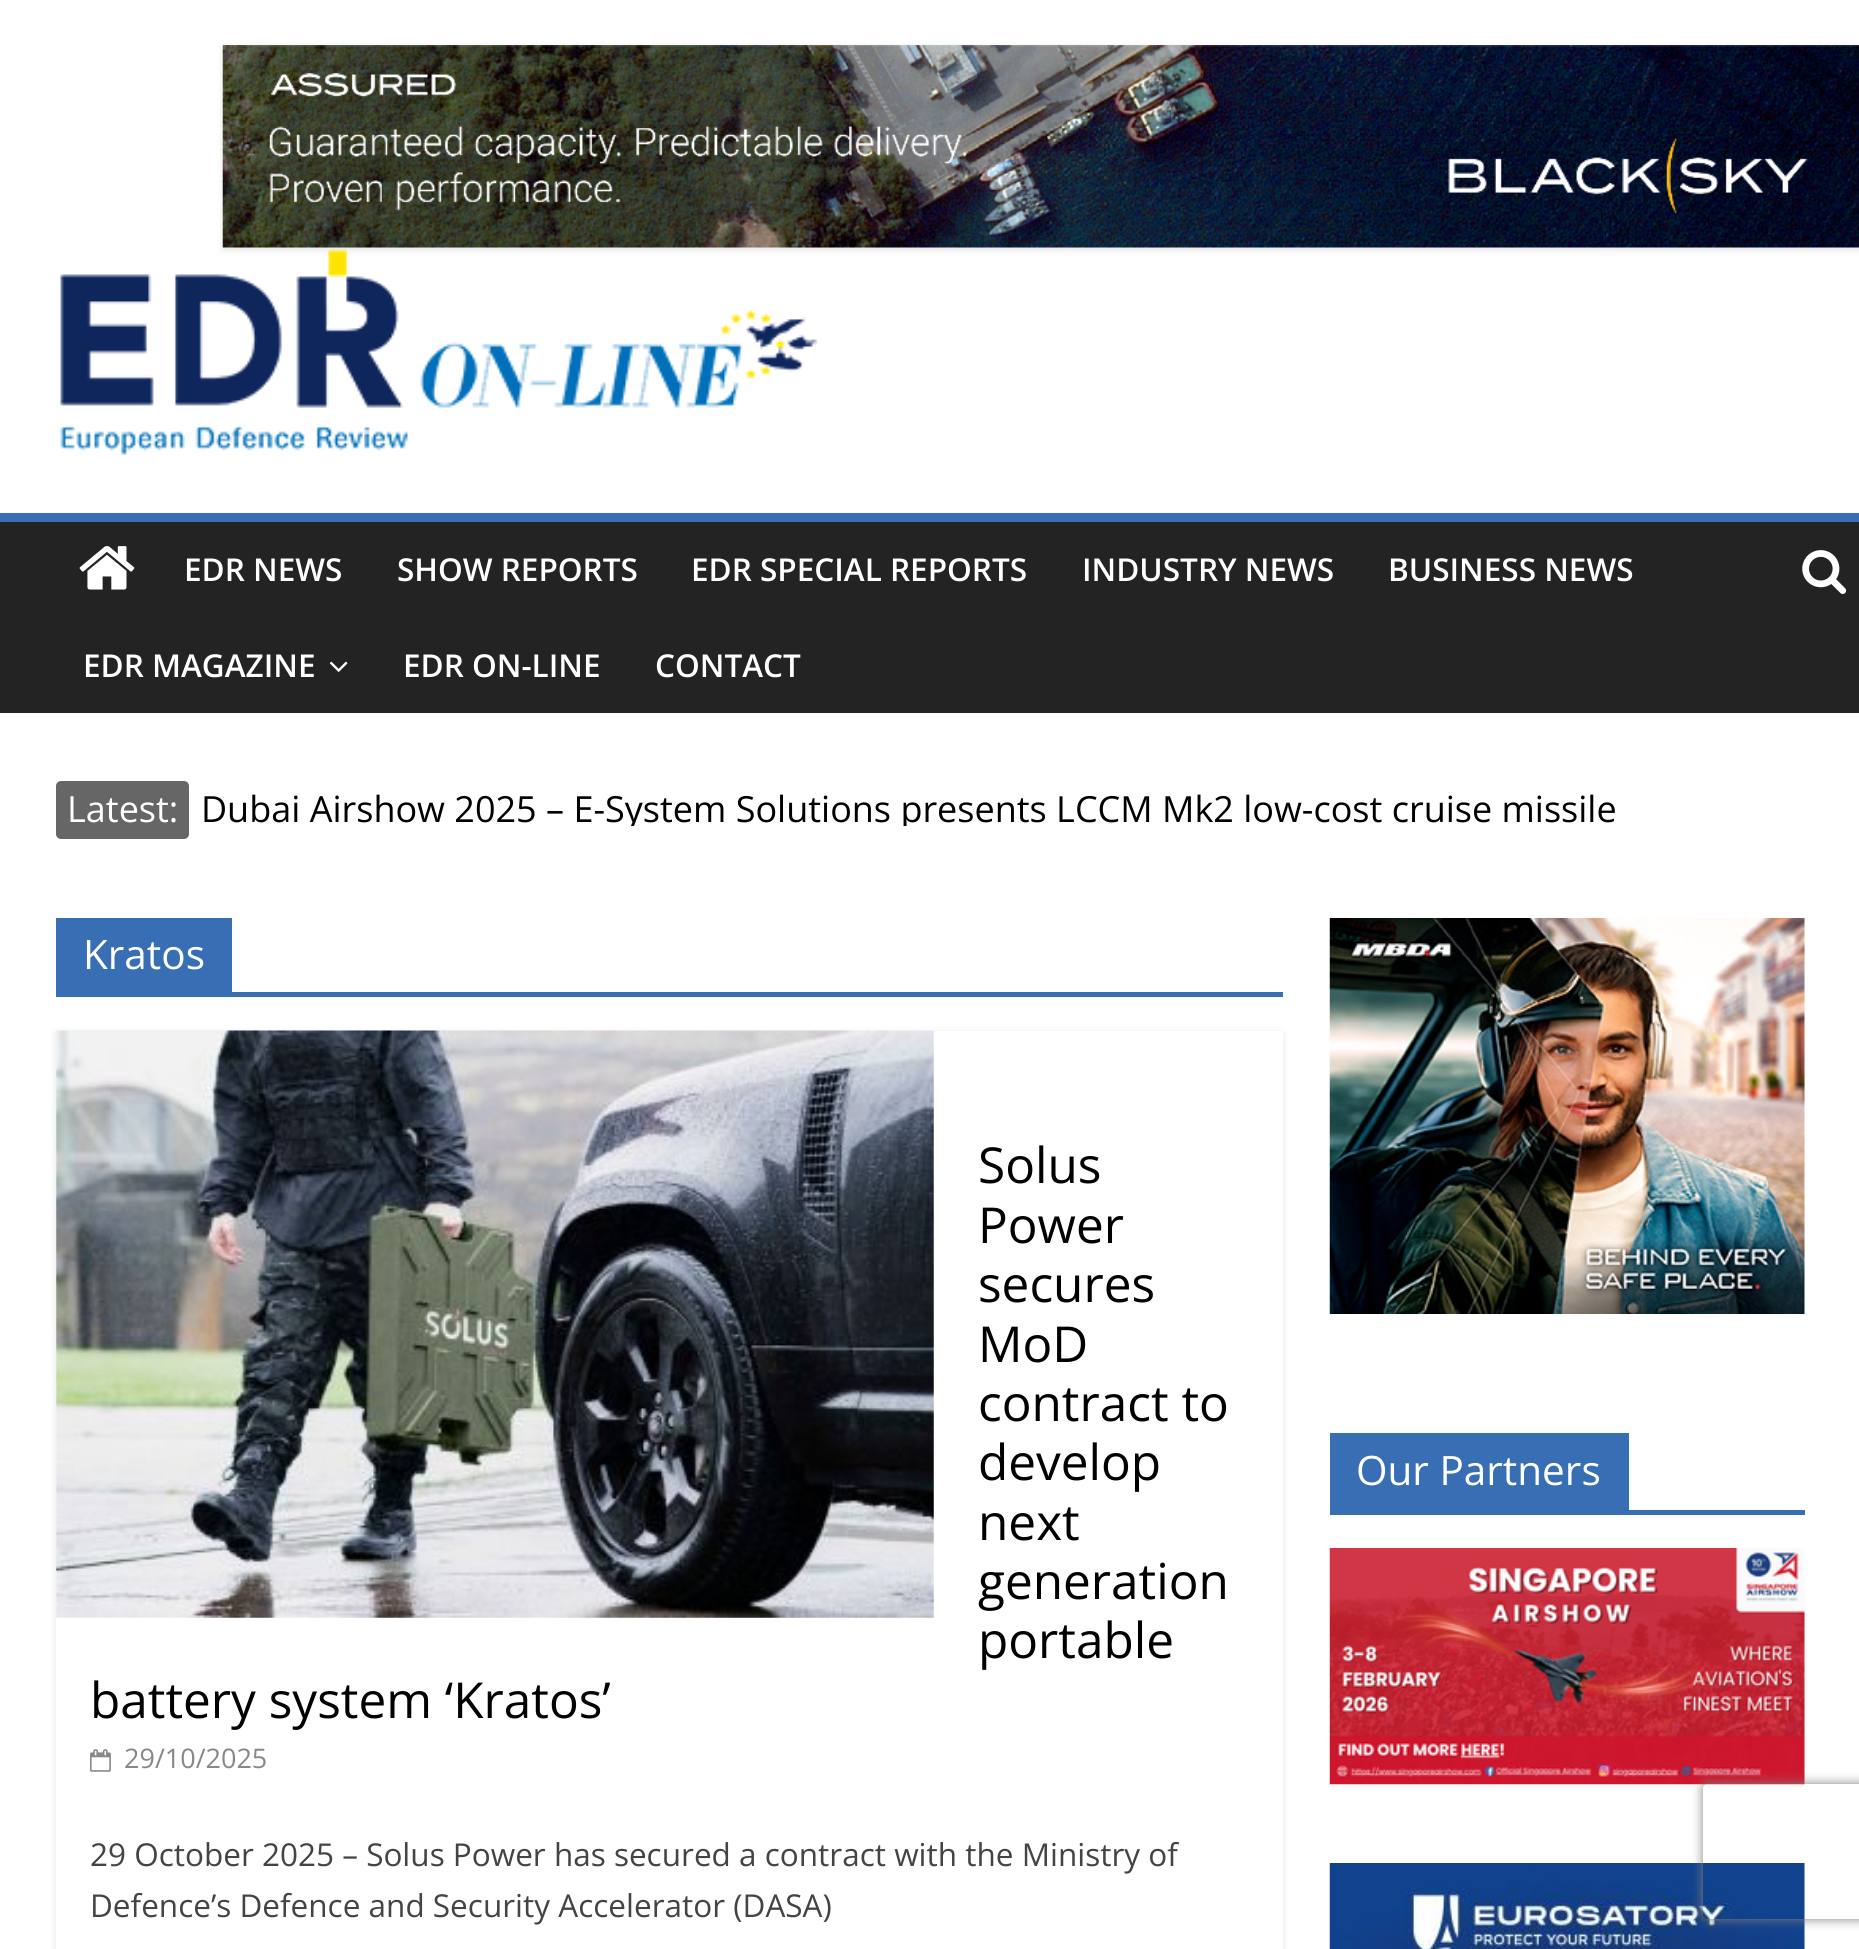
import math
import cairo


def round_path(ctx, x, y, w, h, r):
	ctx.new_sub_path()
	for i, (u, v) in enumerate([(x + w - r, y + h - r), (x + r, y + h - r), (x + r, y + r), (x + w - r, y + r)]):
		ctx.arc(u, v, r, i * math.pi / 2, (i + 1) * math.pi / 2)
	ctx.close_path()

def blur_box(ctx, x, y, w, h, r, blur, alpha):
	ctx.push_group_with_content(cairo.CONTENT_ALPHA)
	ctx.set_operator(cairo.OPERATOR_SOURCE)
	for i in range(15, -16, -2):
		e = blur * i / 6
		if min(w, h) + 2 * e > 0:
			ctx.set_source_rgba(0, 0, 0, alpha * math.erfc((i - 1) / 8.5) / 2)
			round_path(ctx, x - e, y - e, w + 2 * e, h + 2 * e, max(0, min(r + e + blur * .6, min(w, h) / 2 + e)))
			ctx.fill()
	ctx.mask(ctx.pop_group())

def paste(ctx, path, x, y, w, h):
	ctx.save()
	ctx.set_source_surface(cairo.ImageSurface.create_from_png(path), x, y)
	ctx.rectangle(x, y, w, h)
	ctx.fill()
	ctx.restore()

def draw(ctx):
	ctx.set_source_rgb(1, 1, 1)
	ctx.paint()
	ctx.set_source_rgb(0, 0, 0)
	blur_box(ctx, 223, 47, 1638, 203, 0, 3.5, 0.1)
	paste(ctx, 'media/1.png', 222, 45, 1637, 203)
	paste(ctx, 'media/2.png', 60, 249, 758, 207)
	ctx.set_source_rgb(0.137, 0.137, 0.137)
	ctx.rectangle(0, 522, 1859, 191)
	ctx.fill()
	ctx.set_source_rgb(0.22, 0.431, 0.702)
	ctx.rectangle(0, 513, 1859, 9)
	ctx.fill()
	paste(ctx, 'media/3.png', 79, 546, 56, 44)
	paste(ctx, 'media/4.png', 1802, 550, 45, 44)
	ctx.select_font_face('Open Sans SemiBold')
	ctx.set_font_size(31.5)
	ctx.set_source_rgb(1, 1, 1)
	for x, y, s in [
		(184, 581, 'EDR NEWS'),
		(397, 581, 'SHOW REPORTS'),
		(691, 581, 'EDR SPECIAL REPORTS'),
		(1082, 581, 'INDUSTRY NEWS'),
		(1388, 581, 'BUSINESS NEWS'),
		(83, 677, 'EDR MAGAZINE'),
	]:
		ctx.move_to(x, y)
		ctx.show_text(s)
	paste(ctx, 'media/5.png', 329, 661, 19, 11)
	ctx.move_to(403, 677)
	ctx.show_text('EDR ON-LINE')
	ctx.move_to(655, 677)
	ctx.show_text('CONTACT')
	ctx.set_source_rgb(0.4, 0.4, 0.4)
	round_path(ctx, 56, 781, 133, 58, 5)
	ctx.fill()
	ctx.select_font_face('Open Sans')
	ctx.set_font_size(36)
	ctx.set_source_rgb(1, 1, 1)
	ctx.move_to(67, 822)
	ctx.show_text('Latest:')
	ctx.save()
	ctx.rectangle(189, 781, 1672, 45)
	ctx.clip()
	ctx.set_source_rgb(0, 0, 0)
	ctx.move_to(201, 822)
	ctx.show_text('Dubai Airshow 2025 – E-System Solutions presents LCCM Mk2 low-cost cruise missile')
	ctx.restore()
	ctx.set_source_rgb(0.22, 0.431, 0.702)
	ctx.rectangle(56, 992, 1227, 5)
	ctx.fill()
	ctx.rectangle(56, 918, 176, 74)
	ctx.fill()
	ctx.set_font_size(40.5)
	ctx.set_source_rgb(1, 1, 1)
	ctx.move_to(83, 969)
	ctx.show_text('Kratos')
	ctx.save()
	ctx.set_fill_rule(cairo.FILL_RULE_EVEN_ODD)
	ctx.new_path()
	ctx.move_to(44, 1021)
	ctx.line_to(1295, 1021)
	ctx.line_to(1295, 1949)
	ctx.line_to(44, 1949)
	ctx.close_path()
	ctx.move_to(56, 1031)
	ctx.line_to(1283, 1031)
	ctx.line_to(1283, 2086)
	ctx.line_to(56, 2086)
	ctx.close_path()
	ctx.clip()
	ctx.set_source_rgb(0, 0, 0)
	blur_box(ctx, 56, 1033, 1227, 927, 0, 3.5, 0.1)
	ctx.restore()
	paste(ctx, 'media/6.png', 56, 1030, 878, 588)
	ctx.set_font_size(49.5)
	ctx.set_source_rgb(0, 0, 0)
	for x, y, s in [
		(978, 1183, 'Solus'),
		(978, 1243, 'Power'),
		(978, 1302, 'secures'),
		(978, 1362, 'MoD'),
		(978, 1421, 'contract to'),
		(978, 1480, 'develop'),
		(978, 1540, 'next'),
		(978, 1599, 'generation'),
		(978, 1658, 'portable'),
		(90, 1718, 'battery system ‘Kratos’'),
	]:
		ctx.move_to(x, y)
		ctx.show_text(s)
	paste(ctx, 'media/7.png', 90, 1749, 21, 23)
	ctx.set_font_size(27)
	ctx.set_source_rgb(0.533, 0.533, 0.533)
	ctx.move_to(124, 1768)
	ctx.show_text('29/10/2025')
	ctx.set_font_size(31.5)
	ctx.set_source_rgb(0.267, 0.267, 0.267)
	ctx.move_to(90, 1866)
	ctx.show_text('29 October 2025 – Solus Power has secured a contract with the Ministry of')
	ctx.move_to(90, 1917)
	ctx.show_text('Defence’s Defence and Security Accelerator (DASA)')
	paste(ctx, 'media/8.png', 1329, 918, 476, 396)
	ctx.set_source_rgb(0.22, 0.431, 0.702)
	ctx.rectangle(1330, 1510, 475, 5)
	ctx.fill()
	ctx.rectangle(1330, 1433, 299, 77)
	ctx.fill()
	ctx.set_font_size(40.5)
	ctx.set_source_rgb(1, 1, 1)
	ctx.move_to(1356, 1485)
	ctx.show_text('Our Partners')
	paste(ctx, 'media/9.png', 1329, 1548, 476, 237)
	paste(ctx, 'media/10.png', 1329, 1863, 476, 86)
	ctx.save()
	ctx.set_fill_rule(cairo.FILL_RULE_EVEN_ODD)
	ctx.new_path()
	ctx.move_to(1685, 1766)
	ctx.line_to(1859, 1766)
	ctx.line_to(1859, 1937)
	ctx.line_to(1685, 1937)
	ctx.close_path()
	ctx.move_to(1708, 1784)
	ctx.line_to(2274, 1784)
	ctx.curve_to(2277, 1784, 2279, 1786, 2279, 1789)
	ctx.line_to(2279, 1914)
	ctx.curve_to(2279, 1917, 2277, 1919, 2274, 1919)
	ctx.line_to(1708, 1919)
	ctx.curve_to(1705, 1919, 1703, 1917, 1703, 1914)
	ctx.line_to(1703, 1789)
	ctx.curve_to(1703, 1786, 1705, 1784, 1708, 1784)
	ctx.close_path()
	ctx.clip()
	ctx.set_source_rgb(0.502, 0.502, 0.502)
	blur_box(ctx, 1703, 1784, 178, 135, 5, 5.5, 1)
	ctx.restore()


surface = cairo.ImageSurface(cairo.FORMAT_RGB24, 1859, 1949)
ctx = cairo.Context(surface)
options = cairo.FontOptions()
options.set_hint_metrics(cairo.HINT_METRICS_OFF)
options.set_hint_style(cairo.HINT_STYLE_NONE)
ctx.set_font_options(options)
ctx.set_miter_limit(4)
draw(ctx)
surface.write_to_png('image.png')
